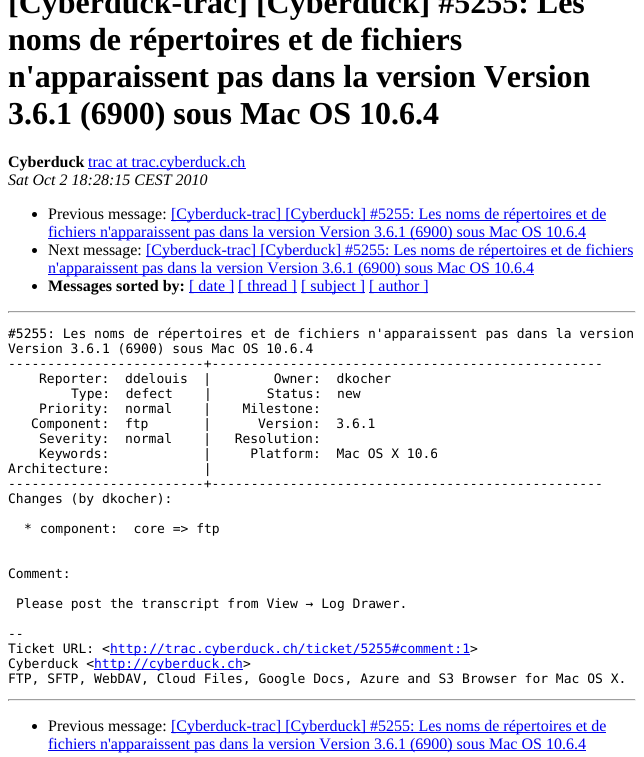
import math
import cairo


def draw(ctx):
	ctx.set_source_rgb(1, 1, 1)
	ctx.paint()
	ctx.select_font_face('Liberation Serif', cairo.FONT_SLANT_NORMAL, cairo.FONT_WEIGHT_BOLD)
	ctx.set_font_size(32)
	ctx.set_source_rgb(0, 0, 0)
	for x, y, s in [
		(8, 13, '[Cyberduck-trac] [Cyberduck] #5255: Les'),
		(8, 50, 'noms de répertoires et de fichiers'),
		(8, 87, 'n\'apparaissent pas dans la version Version'),
		(8, 124, '3.6.1 (6900) sous Mac OS 10.6.4'),
	]:
		ctx.move_to(x, y)
		ctx.show_text(s)
	ctx.set_font_size(16)
	ctx.move_to(8, 167)
	ctx.show_text('Cyberduck')
	ctx.set_source_rgb(0, 0, 0.933)
	ctx.rectangle(88, 168, 158, 1)
	ctx.fill()
	ctx.select_font_face('Liberation Serif')
	ctx.move_to(88, 167)
	ctx.show_text('trac at trac.cyberduck.ch')
	ctx.select_font_face('Liberation Serif', cairo.FONT_SLANT_ITALIC)
	ctx.set_source_rgb(0, 0, 0)
	ctx.move_to(8, 185)
	ctx.show_text('Sat Oct 2 18:28:15 CEST 2010')
	ctx.new_path()
	ctx.arc(34.5, 214.5, 2.5, 0, 2 * math.pi)
	ctx.fill()
	ctx.select_font_face('Liberation Serif')
	ctx.move_to(48, 219)
	ctx.show_text('Previous message:')
	ctx.set_source_rgb(0, 0, 0.933)
	ctx.rectangle(171, 220, 435, 1)
	ctx.fill()
	ctx.move_to(171, 219)
	ctx.show_text('[Cyberduck-trac] [Cyberduck] #5255: Les noms de répertoires et de')
	ctx.rectangle(48, 238, 538, 1)
	ctx.fill()
	ctx.move_to(48, 237)
	ctx.show_text('fichiers n\'apparaissent pas dans la version Version 3.6.1 (6900) sous Mac OS 10.6.4')
	ctx.set_source_rgb(0, 0, 0)
	ctx.new_path()
	ctx.arc(34.5, 250.5, 2.5, 0, 2 * math.pi)
	ctx.fill()
	ctx.move_to(48, 255)
	ctx.show_text('Next message:')
	ctx.set_source_rgb(0, 0, 0.933)
	ctx.rectangle(146, 256, 487, 1)
	ctx.fill()
	ctx.move_to(146, 255)
	ctx.show_text('[Cyberduck-trac] [Cyberduck] #5255: Les noms de répertoires et de fichiers')
	ctx.rectangle(48, 274, 486, 1)
	ctx.fill()
	ctx.move_to(48, 273)
	ctx.show_text('n\'apparaissent pas dans la version Version 3.6.1 (6900) sous Mac OS 10.6.4')
	ctx.set_source_rgb(0, 0, 0)
	ctx.new_path()
	ctx.arc(34.5, 286.5, 2.5, 0, 2 * math.pi)
	ctx.fill()
	ctx.select_font_face('Liberation Serif', cairo.FONT_SLANT_NORMAL, cairo.FONT_WEIGHT_BOLD)
	ctx.move_to(48, 291)
	ctx.show_text('Messages sorted by:')
	ctx.set_source_rgb(0, 0, 0.933)
	ctx.rectangle(189, 292, 45, 1)
	ctx.fill()
	ctx.select_font_face('Liberation Serif')
	ctx.move_to(189, 291)
	ctx.show_text('[ date ]')
	ctx.rectangle(238, 292, 59, 1)
	ctx.fill()
	ctx.move_to(238, 291)
	ctx.show_text('[ thread ]')
	ctx.rectangle(301, 292, 64, 1)
	ctx.fill()
	ctx.move_to(301, 291)
	ctx.show_text('[ subject ]')
	ctx.rectangle(369, 292, 59, 1)
	ctx.fill()
	ctx.move_to(369, 291)
	ctx.show_text('[ author ]')
	ctx.set_source_rgb(0.624, 0.624, 0.624)
	ctx.rectangle(8, 311, 628, 1)
	ctx.fill()
	ctx.set_source_rgb(0.933, 0.933, 0.933)
	ctx.rectangle(635, 311, 1, 2)
	ctx.rectangle(8, 312, 628, 1)
	ctx.fill()
	ctx.set_source_rgb(0.624, 0.624, 0.624)
	ctx.rectangle(8, 311, 1, 2)
	ctx.fill()
	ctx.select_font_face('DejaVu Sans Mono')
	ctx.set_font_size(13)
	ctx.set_source_rgb(0, 0, 0)
	for x, y, s in [
		(8, 338, '#5255: Les noms de répertoires et de fichiers n\'apparaissent pas dans la version'),
		(8, 353, 'Version 3.6.1 (6900) sous Mac OS 10.6.4'),
		(8, 368, '-------------------------+--------------------------------------------------'),
		(39, 383, 'Reporter:  ddelouis  |        Owner:  dkocher'),
		(71, 398, 'Type:  defect    |       Status:  new'),
		(39, 413, 'Priority:  normal    |    Milestone:'),
		(31, 428, 'Component:  ftp       |      Version:  3.6.1'),
		(39, 443, 'Severity:  normal    |   Resolution:'),
		(39, 458, 'Keywords:            |     Platform:  Mac OS X 10.6'),
		(8, 473, 'Architecture:            |'),
		(8, 488, '-------------------------+--------------------------------------------------'),
		(8, 503, 'Changes (by dkocher):'),
		(24, 533, '* component:  core => ftp'),
		(8, 578, 'Comment:'),
		(16, 608, 'Please post the transcript from View → Log Drawer.'),
		(8, 638, '--'),
		(8, 653, 'Ticket URL: <'),
	]:
		ctx.move_to(x, y)
		ctx.show_text(s)
	ctx.set_source_rgb(0, 0, 0.933)
	ctx.rectangle(110, 654, 360, 1)
	ctx.fill()
	ctx.move_to(110, 653)
	ctx.show_text('http://trac.cyberduck.ch/ticket/5255#comment:1')
	ctx.set_source_rgb(0, 0, 0)
	ctx.move_to(470, 653)
	ctx.show_text('>')
	ctx.move_to(8, 668)
	ctx.show_text('Cyberduck <')
	ctx.set_source_rgb(0, 0, 0.933)
	ctx.rectangle(94, 669, 149, 1)
	ctx.fill()
	ctx.move_to(94, 668)
	ctx.show_text('http://cyberduck.ch')
	ctx.set_source_rgb(0, 0, 0)
	ctx.move_to(243, 668)
	ctx.show_text('>')
	ctx.move_to(8, 683)
	ctx.show_text('FTP, SFTP, WebDAV, Cloud Files, Google Docs, Azure and S3 Browser for Mac OS X.')
	ctx.set_source_rgb(0.624, 0.624, 0.624)
	ctx.rectangle(8, 699, 628, 1)
	ctx.fill()
	ctx.set_source_rgb(0.933, 0.933, 0.933)
	ctx.rectangle(635, 699, 1, 2)
	ctx.rectangle(8, 700, 628, 1)
	ctx.fill()
	ctx.set_source_rgb(0.624, 0.624, 0.624)
	ctx.rectangle(8, 699, 1, 2)
	ctx.fill()
	ctx.set_source_rgb(0, 0, 0)
	ctx.arc(34.5, 726.5, 2.5, 0, 2 * math.pi)
	ctx.fill()
	ctx.select_font_face('Liberation Serif')
	ctx.set_font_size(16)
	ctx.move_to(48, 731)
	ctx.show_text('Previous message:')
	ctx.set_source_rgb(0, 0, 0.933)
	ctx.rectangle(171, 732, 435, 1)
	ctx.fill()
	ctx.move_to(171, 731)
	ctx.show_text('[Cyberduck-trac] [Cyberduck] #5255: Les noms de répertoires et de')
	ctx.rectangle(48, 750, 538, 1)
	ctx.fill()
	ctx.move_to(48, 749)
	ctx.show_text('fichiers n\'apparaissent pas dans la version Version 3.6.1 (6900) sous Mac OS 10.6.4')


surface = cairo.ImageSurface(cairo.FORMAT_RGB24, 644, 757)
ctx = cairo.Context(surface)
options = cairo.FontOptions()
options.set_hint_metrics(cairo.HINT_METRICS_OFF)
options.set_hint_style(cairo.HINT_STYLE_NONE)
ctx.set_font_options(options)
ctx.set_miter_limit(4)
draw(ctx)
surface.write_to_png('image.png')
